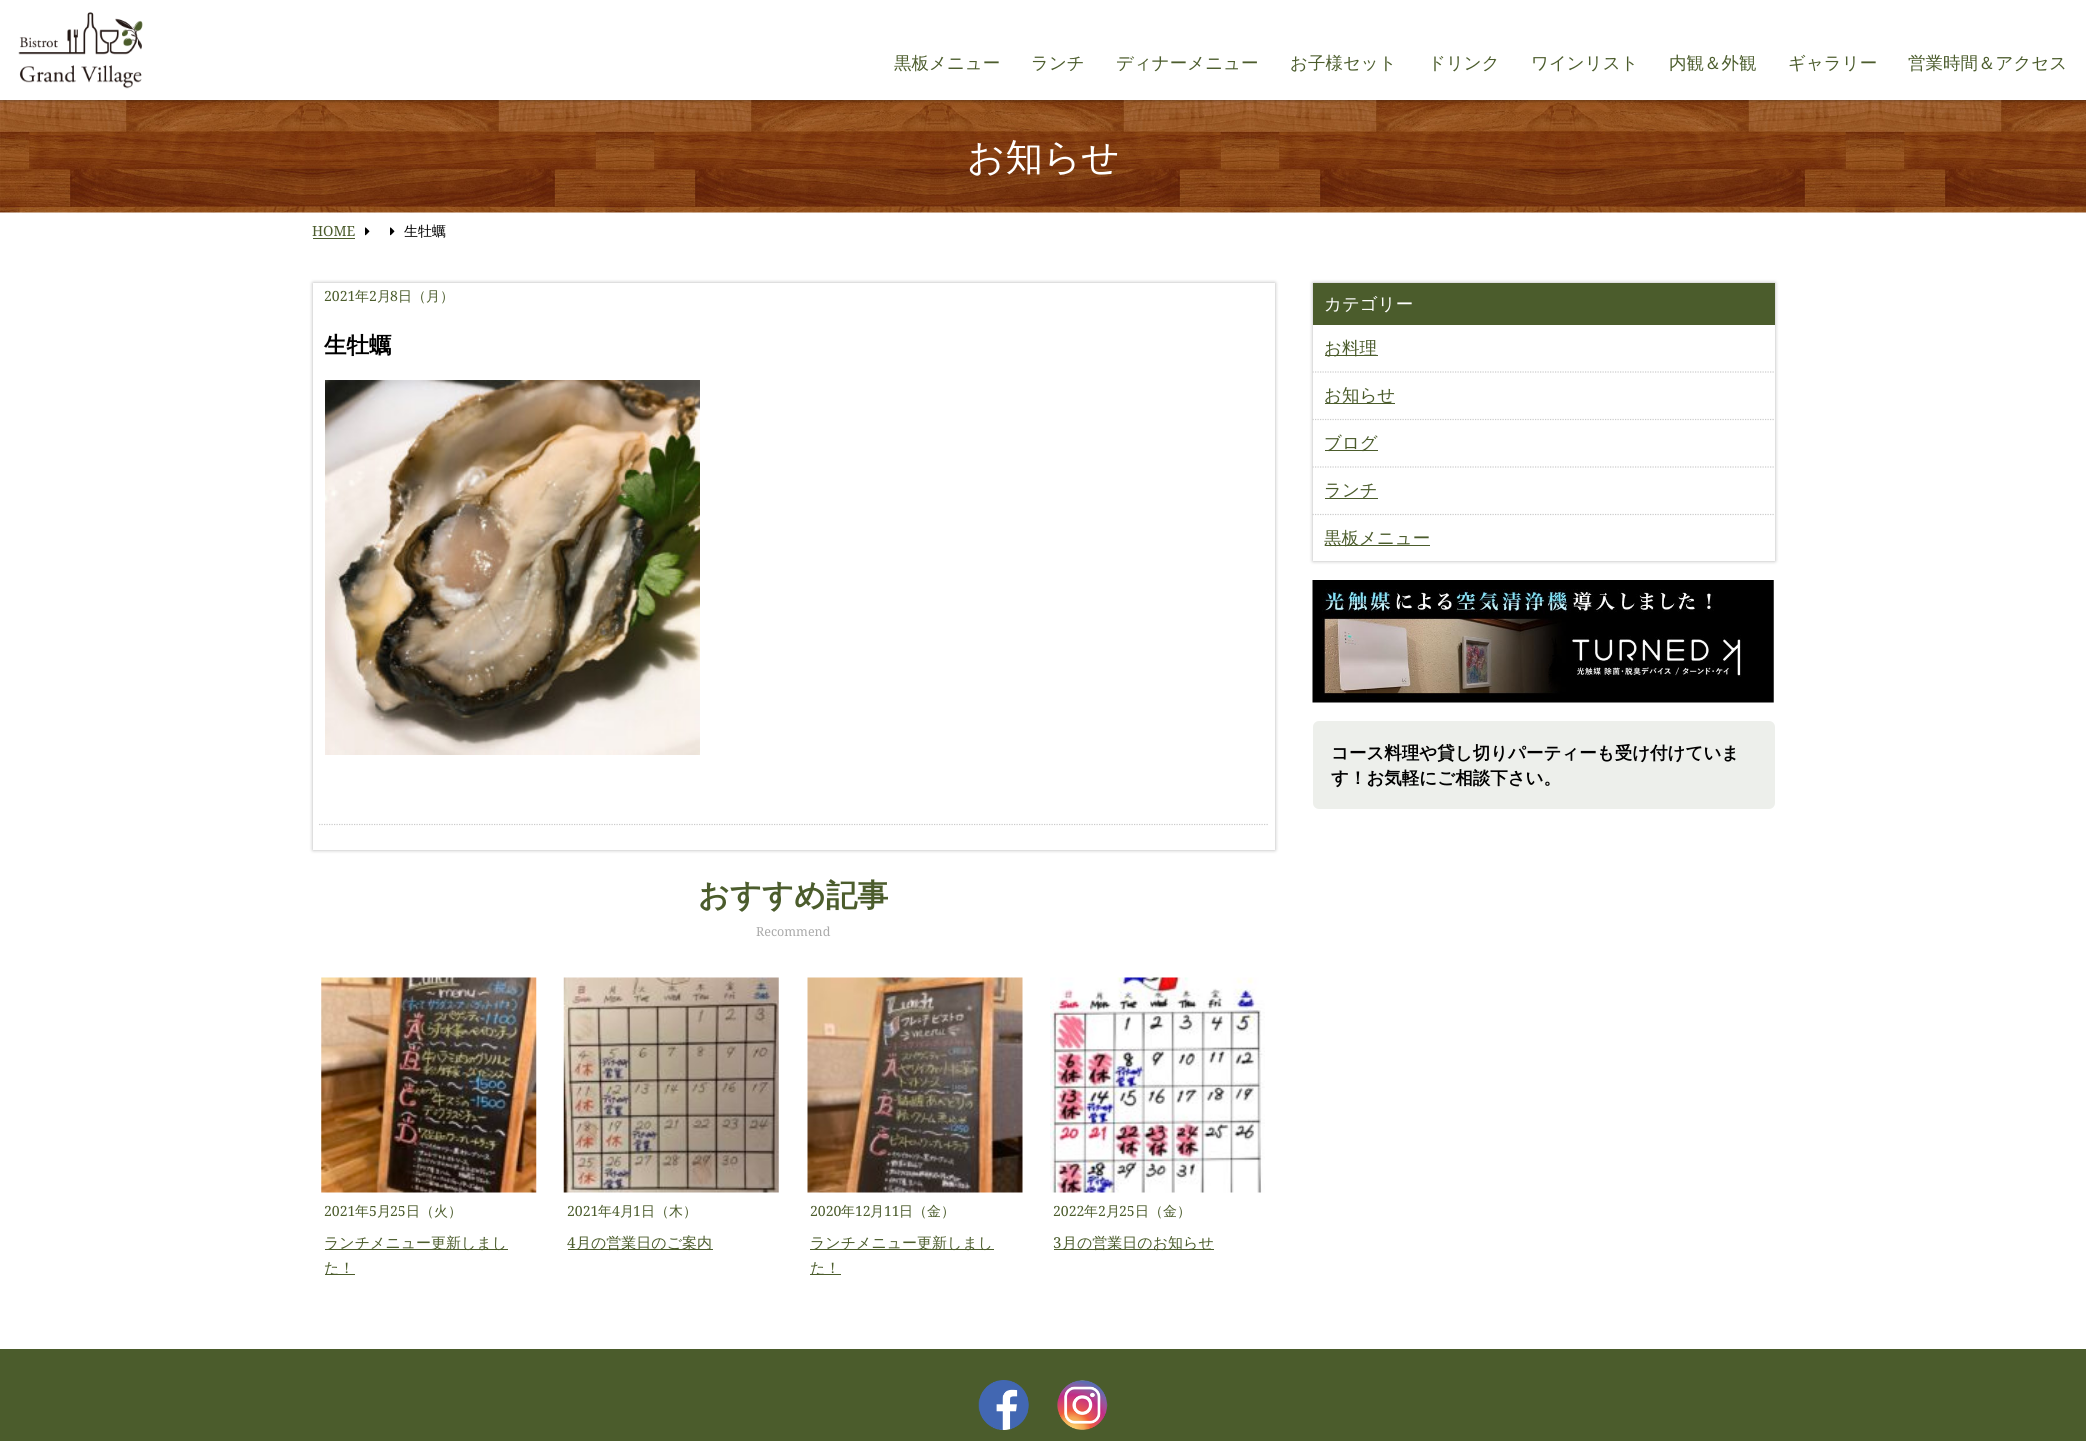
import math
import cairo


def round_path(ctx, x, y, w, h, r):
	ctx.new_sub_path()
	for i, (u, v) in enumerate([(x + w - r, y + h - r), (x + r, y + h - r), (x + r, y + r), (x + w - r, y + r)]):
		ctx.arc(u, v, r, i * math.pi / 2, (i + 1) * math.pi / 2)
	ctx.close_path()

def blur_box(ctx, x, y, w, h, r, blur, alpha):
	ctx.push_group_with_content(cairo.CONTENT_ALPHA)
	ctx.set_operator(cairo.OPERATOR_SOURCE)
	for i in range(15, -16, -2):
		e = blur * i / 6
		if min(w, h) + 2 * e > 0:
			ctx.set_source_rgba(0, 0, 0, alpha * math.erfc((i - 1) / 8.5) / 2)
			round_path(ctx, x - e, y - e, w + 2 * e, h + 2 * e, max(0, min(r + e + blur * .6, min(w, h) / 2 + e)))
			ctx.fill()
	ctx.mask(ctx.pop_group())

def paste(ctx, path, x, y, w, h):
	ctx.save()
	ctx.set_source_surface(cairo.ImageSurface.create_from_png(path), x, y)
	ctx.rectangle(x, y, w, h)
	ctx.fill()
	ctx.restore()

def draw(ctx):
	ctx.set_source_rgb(1, 1, 1)
	ctx.paint()
	paste(ctx, 'media/2.png', 0, 100, 2086, 113)
	ctx.save()
	ctx.rectangle(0, 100, 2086, 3)
	ctx.clip()
	ctx.set_source_rgb(0, 0, 0)
	blur_box(ctx, 0, 0, 2086, 100, 0, 2, 0.5)
	ctx.restore()
	paste(ctx, 'media/1.png', 18, 12, 125, 77)
	ctx.select_font_face('WenQuanYi Zen Hei Medium')
	ctx.set_font_size(17.5)
	ctx.set_source_rgb(0.294, 0.361, 0.173)
	for x, y, s in [
		(894, 69, '黒板メニュー'),
		(1031, 69, 'ランチ'),
		(1116, 69, 'ディナーメニュー'),
		(1290, 69, 'お子様セット'),
		(1428, 69, 'ドリンク'),
		(1531, 69, 'ワインリスト'),
		(1669, 69, '内観＆外観'),
		(1788, 69, 'ギャラリー'),
		(1908, 69, '営業時間＆アクセス'),
	]:
		ctx.move_to(x, y)
		ctx.show_text(s)
	ctx.set_font_size(37.5)
	ctx.set_source_rgb(1, 1, 1)
	ctx.move_to(967, 170)
	ctx.show_text('お知らせ')
	ctx.select_font_face('Noto Serif')
	ctx.set_font_size(14)
	ctx.set_source_rgb(0.294, 0.361, 0.173)
	ctx.move_to(312, 236)
	ctx.show_text('HOME')
	ctx.rectangle(313, 238, 42, 1)
	ctx.fill()
	paste(ctx, 'media/3.png', 365, 227, 5, 9)
	paste(ctx, 'media/3.png', 390, 227, 5, 9)
	ctx.select_font_face('WenQuanYi Zen Hei Medium')
	ctx.set_source_rgb(0, 0, 0)
	ctx.move_to(404, 236)
	ctx.show_text('生牡蠣')
	ctx.save()
	ctx.set_fill_rule(cairo.FILL_RULE_EVEN_ODD)
	ctx.new_path()
	ctx.move_to(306, 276)
	ctx.line_to(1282, 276)
	ctx.line_to(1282, 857)
	ctx.line_to(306, 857)
	ctx.close_path()
	ctx.move_to(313, 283)
	ctx.line_to(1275, 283)
	ctx.line_to(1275, 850)
	ctx.line_to(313, 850)
	ctx.close_path()
	ctx.clip()
	ctx.set_source_rgb(0, 0, 0)
	blur_box(ctx, 313, 283, 962, 567, 0, 2, 0.3)
	ctx.restore()
	ctx.select_font_face('Noto Serif')
	ctx.set_source_rgb(0.294, 0.361, 0.173)
	ctx.move_to(324, 301)
	ctx.show_text('2021')
	ctx.select_font_face('WenQuanYi Zen Hei Medium')
	ctx.move_to(355, 301)
	ctx.show_text('年')
	ctx.select_font_face('Noto Serif')
	ctx.move_to(369, 301)
	ctx.show_text('2')
	ctx.select_font_face('WenQuanYi Zen Hei Medium')
	ctx.move_to(377, 301)
	ctx.show_text('月')
	ctx.select_font_face('Noto Serif')
	ctx.move_to(390, 301)
	ctx.show_text('8')
	ctx.select_font_face('WenQuanYi Zen Hei Medium')
	ctx.move_to(398, 301)
	ctx.show_text('日（月）')
	ctx.select_font_face('WenQuanYi Zen Hei', cairo.FONT_SLANT_NORMAL, cairo.FONT_WEIGHT_BOLD)
	ctx.set_font_size(22.5)
	ctx.set_source_rgb(0, 0, 0)
	ctx.move_to(324, 353)
	ctx.show_text('生牡蠣')
	paste(ctx, 'media/4.png', 325, 380, 375, 375)
	ctx.new_path()
	ctx.move_to(319, 824.5)
	ctx.line_to(1269, 824.5)
	ctx.set_source_rgb(0.8, 0.8, 0.8)
	ctx.set_line_width(1.2)
	ctx.set_dash([1.25, 1.25])
	ctx.stroke()
	ctx.set_font_size(31.25)
	ctx.set_source_rgb(0.294, 0.361, 0.173)
	ctx.move_to(698, 906)
	ctx.show_text('おすすめ記事')
	ctx.select_font_face('Noto Serif')
	ctx.set_font_size(12.5)
	ctx.set_source_rgb(0.667, 0.667, 0.667)
	ctx.move_to(756, 936)
	ctx.show_text('Recommend')
	paste(ctx, 'media/5.png', 321, 977, 216, 216)
	ctx.set_font_size(14)
	ctx.set_source_rgb(0.294, 0.361, 0.173)
	ctx.move_to(324, 1216)
	ctx.show_text('2021')
	ctx.select_font_face('WenQuanYi Zen Hei Medium')
	ctx.move_to(355, 1216)
	ctx.show_text('年')
	ctx.select_font_face('Noto Serif')
	ctx.move_to(369, 1216)
	ctx.show_text('5')
	ctx.select_font_face('WenQuanYi Zen Hei Medium')
	ctx.move_to(377, 1216)
	ctx.show_text('月')
	ctx.select_font_face('Noto Serif')
	ctx.move_to(390, 1216)
	ctx.show_text('25')
	ctx.select_font_face('WenQuanYi Zen Hei Medium')
	ctx.move_to(406, 1216)
	ctx.show_text('日（火）')
	ctx.rectangle(325, 1249, 183, 1)
	ctx.fill()
	ctx.set_font_size(15)
	ctx.move_to(324, 1248)
	ctx.show_text('ランチメニュー更新しまし')
	ctx.rectangle(325, 1274, 30, 1)
	ctx.fill()
	ctx.move_to(324, 1273)
	ctx.show_text('た！')
	paste(ctx, 'media/6.png', 563, 977, 216, 216)
	ctx.select_font_face('Noto Serif')
	ctx.set_font_size(14)
	ctx.move_to(567, 1216)
	ctx.show_text('2021')
	ctx.select_font_face('WenQuanYi Zen Hei Medium')
	ctx.move_to(598, 1216)
	ctx.show_text('年')
	ctx.select_font_face('Noto Serif')
	ctx.move_to(612, 1216)
	ctx.show_text('4')
	ctx.select_font_face('WenQuanYi Zen Hei Medium')
	ctx.move_to(620, 1216)
	ctx.show_text('月')
	ctx.select_font_face('Noto Serif')
	ctx.move_to(633, 1216)
	ctx.show_text('1')
	ctx.select_font_face('WenQuanYi Zen Hei Medium')
	ctx.move_to(641, 1216)
	ctx.show_text('日（木）')
	ctx.select_font_face('Noto Serif')
	ctx.set_font_size(15)
	ctx.move_to(567, 1248)
	ctx.show_text('4')
	ctx.rectangle(568, 1249, 145, 1)
	ctx.fill()
	ctx.select_font_face('WenQuanYi Zen Hei Medium')
	ctx.move_to(576, 1248)
	ctx.show_text('月の営業日のご案内')
	paste(ctx, 'media/7.png', 807, 977, 216, 216)
	ctx.select_font_face('Noto Serif')
	ctx.set_font_size(14)
	ctx.move_to(810, 1216)
	ctx.show_text('2020')
	ctx.select_font_face('WenQuanYi Zen Hei Medium')
	ctx.move_to(841, 1216)
	ctx.show_text('年')
	ctx.select_font_face('Noto Serif')
	ctx.move_to(855, 1216)
	ctx.show_text('12')
	ctx.select_font_face('WenQuanYi Zen Hei Medium')
	ctx.move_to(870, 1216)
	ctx.show_text('月')
	ctx.select_font_face('Noto Serif')
	ctx.move_to(884, 1216)
	ctx.show_text('11')
	ctx.select_font_face('WenQuanYi Zen Hei Medium')
	ctx.move_to(899, 1216)
	ctx.show_text('日（金）')
	ctx.rectangle(810, 1249, 184, 1)
	ctx.fill()
	ctx.set_font_size(15)
	ctx.move_to(810, 1248)
	ctx.show_text('ランチメニュー更新しまし')
	ctx.rectangle(810, 1274, 31, 1)
	ctx.fill()
	ctx.move_to(810, 1273)
	ctx.show_text('た！')
	paste(ctx, 'media/8.png', 1050, 977, 215, 216)
	ctx.select_font_face('Noto Serif')
	ctx.set_font_size(14)
	ctx.move_to(1053, 1216)
	ctx.show_text('2022')
	ctx.select_font_face('WenQuanYi Zen Hei Medium')
	ctx.move_to(1084, 1216)
	ctx.show_text('年')
	ctx.select_font_face('Noto Serif')
	ctx.move_to(1098, 1216)
	ctx.show_text('2')
	ctx.select_font_face('WenQuanYi Zen Hei Medium')
	ctx.move_to(1106, 1216)
	ctx.show_text('月')
	ctx.select_font_face('Noto Serif')
	ctx.move_to(1119, 1216)
	ctx.show_text('25')
	ctx.select_font_face('WenQuanYi Zen Hei Medium')
	ctx.move_to(1135, 1216)
	ctx.show_text('日（金）')
	ctx.select_font_face('Noto Serif')
	ctx.set_font_size(15)
	ctx.move_to(1053, 1248)
	ctx.show_text('3')
	ctx.rectangle(1054, 1249, 160, 1)
	ctx.fill()
	ctx.select_font_face('WenQuanYi Zen Hei Medium')
	ctx.move_to(1062, 1248)
	ctx.show_text('月の営業日のお知らせ')
	ctx.save()
	ctx.set_fill_rule(cairo.FILL_RULE_EVEN_ODD)
	ctx.new_path()
	ctx.move_to(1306, 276)
	ctx.line_to(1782, 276)
	ctx.line_to(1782, 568)
	ctx.line_to(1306, 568)
	ctx.close_path()
	ctx.move_to(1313, 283)
	ctx.line_to(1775, 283)
	ctx.line_to(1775, 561)
	ctx.line_to(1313, 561)
	ctx.close_path()
	ctx.clip()
	ctx.set_source_rgb(0, 0, 0)
	blur_box(ctx, 1313, 283, 462, 278, 0, 2, 0.3)
	ctx.restore()
	ctx.rectangle(1313, 283, 462, 42)
	ctx.fill()
	ctx.set_font_size(17.5)
	ctx.set_source_rgb(1, 1, 1)
	ctx.move_to(1324, 310)
	ctx.show_text('カテゴリー')
	ctx.new_path()
	ctx.move_to(1312.5, 372)
	ctx.line_to(1775, 372)
	ctx.set_source_rgb(0.8, 0.8, 0.8)
	ctx.stroke()
	ctx.set_source_rgb(0.294, 0.361, 0.173)
	ctx.rectangle(1325, 355, 53, 1)
	ctx.fill()
	ctx.move_to(1324, 354)
	ctx.show_text('お料理')
	ctx.new_path()
	ctx.move_to(1312.5, 419.5)
	ctx.line_to(1775, 419.5)
	ctx.set_source_rgb(0.8, 0.8, 0.8)
	ctx.stroke()
	ctx.set_source_rgb(0.294, 0.361, 0.173)
	ctx.rectangle(1325, 403, 70, 1)
	ctx.fill()
	ctx.move_to(1324, 401)
	ctx.show_text('お知らせ')
	ctx.new_path()
	ctx.move_to(1312.5, 467)
	ctx.line_to(1775, 467)
	ctx.set_source_rgb(0.8, 0.8, 0.8)
	ctx.stroke()
	ctx.set_source_rgb(0.294, 0.361, 0.173)
	ctx.rectangle(1325, 450, 53, 1)
	ctx.fill()
	ctx.move_to(1324, 449)
	ctx.show_text('ブログ')
	ctx.new_path()
	ctx.move_to(1312.5, 514.5)
	ctx.line_to(1775, 514.5)
	ctx.set_source_rgb(0.8, 0.8, 0.8)
	ctx.stroke()
	ctx.set_source_rgb(0.294, 0.361, 0.173)
	ctx.rectangle(1325, 498, 53, 1)
	ctx.fill()
	ctx.move_to(1324, 496)
	ctx.show_text('ランチ')
	ctx.rectangle(1325, 545, 105, 1)
	ctx.fill()
	ctx.move_to(1324, 544)
	ctx.show_text('黒板メニュー')
	paste(ctx, 'media/9.png', 1312, 580, 462, 123)
	ctx.set_source_rgb(0.929, 0.937, 0.918)
	round_path(ctx, 1313, 721, 462, 88, 6)
	ctx.fill()
	ctx.select_font_face('WenQuanYi Zen Hei', cairo.FONT_SLANT_NORMAL, cairo.FONT_WEIGHT_BOLD)
	ctx.set_source_rgb(0, 0, 0)
	ctx.move_to(1331, 759)
	ctx.show_text('コース料理や貸し切りパーティーも受け付けていま')
	ctx.move_to(1331, 784)
	ctx.show_text('す！お気軽にご相談下さい。')
	ctx.set_source_rgb(0.294, 0.361, 0.173)
	ctx.rectangle(0, 1349, 2086, 92)
	ctx.fill()
	paste(ctx, 'media/10.png', 978, 1380, 51, 50)
	paste(ctx, 'media/11.png', 1057, 1380, 51, 50)


surface = cairo.ImageSurface(cairo.FORMAT_RGB24, 2086, 1441)
ctx = cairo.Context(surface)
options = cairo.FontOptions()
options.set_hint_metrics(cairo.HINT_METRICS_OFF)
options.set_hint_style(cairo.HINT_STYLE_NONE)
ctx.set_font_options(options)
ctx.set_miter_limit(4)
draw(ctx)
surface.write_to_png('image.png')
